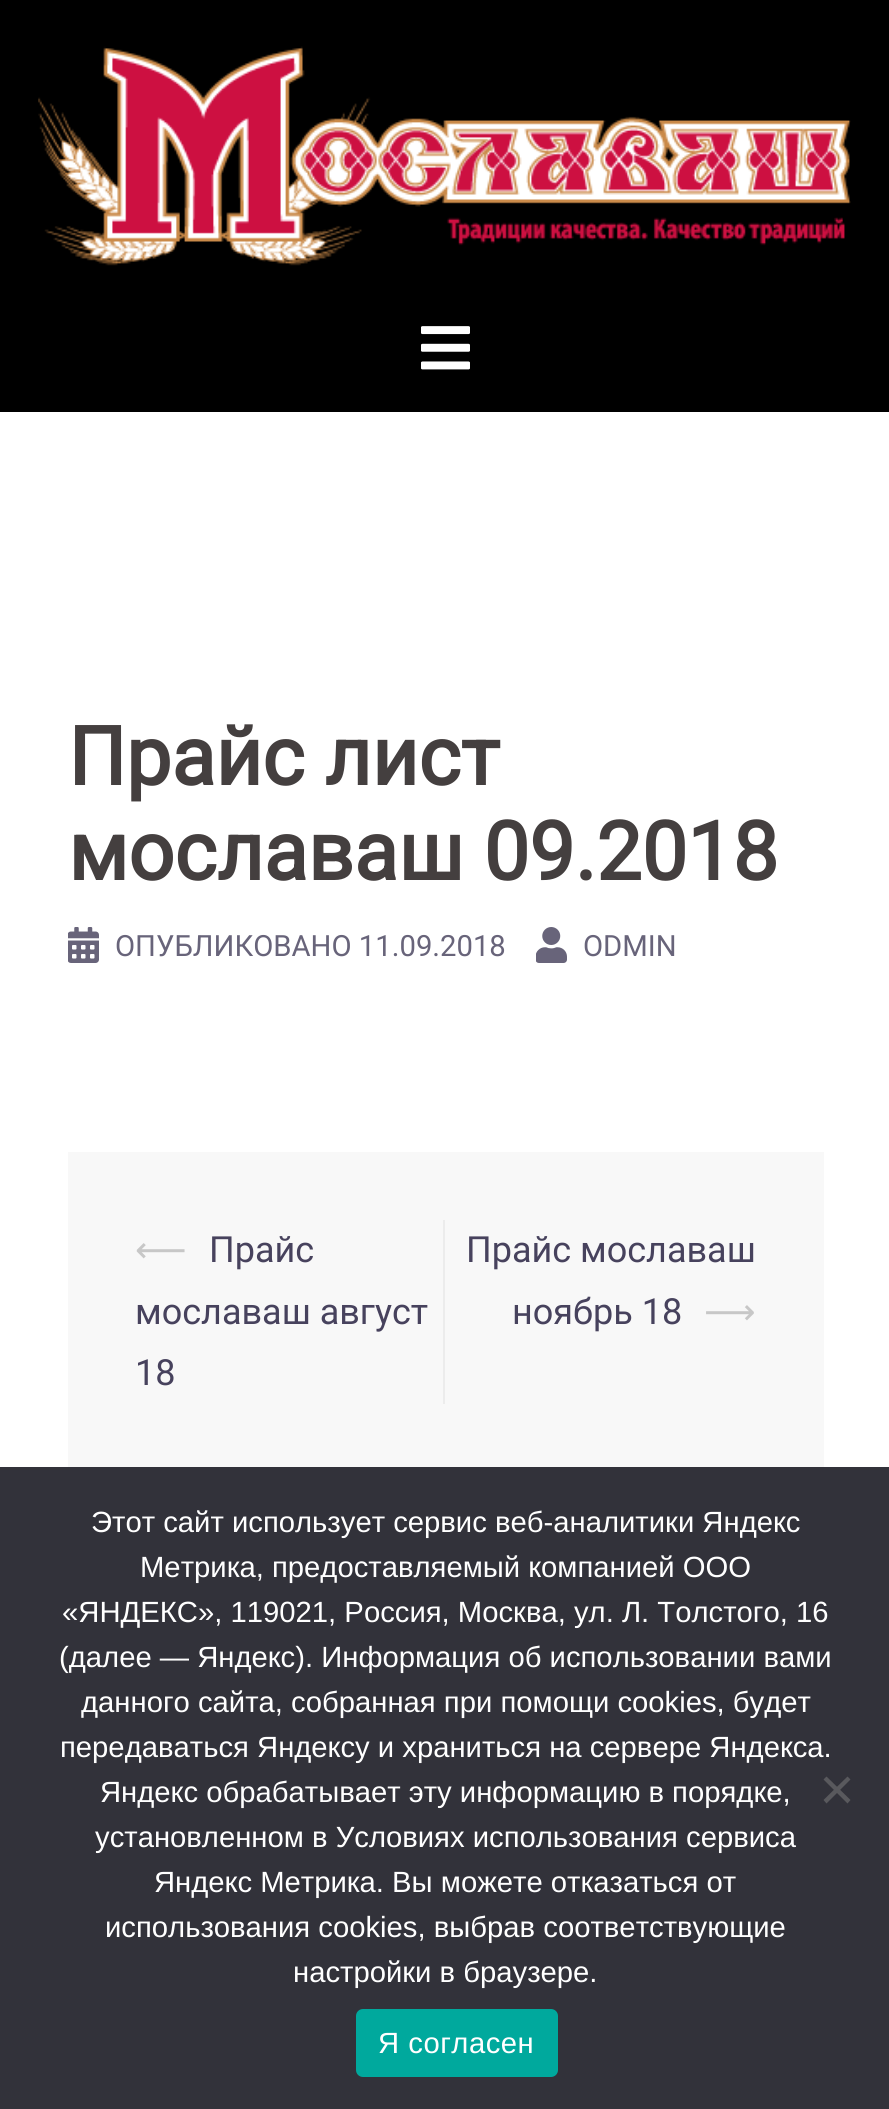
import math
import cairo


def write_spaced(ctx, x, y, s, letter, word):
	ctx.move_to(x, y)
	for ch in s:
		ctx.show_text(ch)
		ctx.rel_move_to(letter + word * (ch == ' '), 0)

def round_path(ctx, x, y, w, h, r):
	ctx.new_sub_path()
	for i, (u, v) in enumerate([(x + w - r, y + h - r), (x + r, y + h - r), (x + r, y + r), (x + w - r, y + r)]):
		ctx.arc(u, v, r, i * math.pi / 2, (i + 1) * math.pi / 2)
	ctx.close_path()

def paste(ctx, path, x, y, w, h):
	ctx.save()
	ctx.set_source_surface(cairo.ImageSurface.create_from_png(path), x, y)
	ctx.rectangle(x, y, w, h)
	ctx.fill()
	ctx.restore()

def draw(ctx):
	ctx.set_source_rgb(1, 1, 1)
	ctx.paint()
	ctx.set_source_rgb(0, 0, 0)
	ctx.rectangle(0, 0, 889, 412)
	ctx.fill()
	paste(ctx, 'media/1.png', 38, 46, 813, 220)
	paste(ctx, 'media/2.png', 421, 326, 49, 44)
	ctx.select_font_face('Roboto', cairo.FONT_SLANT_NORMAL, cairo.FONT_WEIGHT_BOLD)
	ctx.set_font_size(81)
	ctx.set_source_rgb(0.267, 0.247, 0.247)
	ctx.move_to(68, 785)
	ctx.show_text('Прайс лист')
	ctx.move_to(68, 880)
	ctx.show_text('мославаш 09.2018')
	paste(ctx, 'media/3.png', 68, 927, 31, 36)
	ctx.select_font_face('Roboto')
	ctx.set_font_size(29.25)
	ctx.set_source_rgb(0.408, 0.392, 0.478)
	ctx.move_to(115, 956)
	ctx.show_text('ОПУБЛИКОВАНО 11.09.2018')
	paste(ctx, 'media/4.png', 536, 927, 31, 36)
	ctx.move_to(583, 956)
	ctx.show_text('ODMIN')
	ctx.set_source_rgb(0.969, 0.969, 0.969)
	ctx.rectangle(68, 1152, 756, 315)
	ctx.fill()
	ctx.set_source_rgb(0.922, 0.922, 0.922)
	ctx.rectangle(443, 1220, 2, 184)
	ctx.fill()
	ctx.select_font_face('DejaVu Sans')
	ctx.set_font_size(36)
	ctx.set_source_rgb(0.78, 0.78, 0.78)
	ctx.move_to(135, 1262)
	ctx.show_text('⟵')
	ctx.select_font_face('Roboto')
	ctx.set_source_rgb(0.278, 0.259, 0.365)
	for x, y, s in [
		(209, 1262, 'Прайс'),
		(135, 1324, 'мославаш август'),
		(135, 1385, '18'),
		(466, 1262, 'Прайс мославаш'),
		(512, 1324, 'ноябрь 18'),
	]:
		ctx.move_to(x, y)
		ctx.show_text(s)
	ctx.select_font_face('DejaVu Sans')
	ctx.set_source_rgb(0.78, 0.78, 0.78)
	ctx.move_to(704, 1324)
	ctx.show_text('⟶')
	ctx.set_source_rgb(0.196, 0.196, 0.227)
	ctx.rectangle(0, 1467, 889, 642)
	ctx.fill()
	ctx.select_font_face('Liberation Sans')
	ctx.set_font_size(29.25)
	ctx.set_source_rgb(1, 1, 1)
	for x, y, s in [
		(91, 1532, 'Этот сайт использует сервис веб-аналитики Яндекс'),
		(140, 1577, 'Метрика, предоставляемый компанией ООО'),
		(62, 1622, '«ЯНДЕКС», 119021, Россия, Москва, ул. Л. Толстого, 16'),
		(59, 1667, '(далее — Яндекс). Информация об использовании вами'),
		(81, 1712, 'данного сайта, собранная при помощи cookies, будет'),
		(60, 1757, 'передаваться Яндексу и храниться на сервере Яндекса.'),
		(100, 1802, 'Яндекс обрабатывает эту информацию в порядке,'),
		(95, 1847, 'установленном в Условиях использования сервиса'),
		(154, 1892, 'Яндекс Метрика. Вы можете отказаться от'),
		(105, 1937, 'использования cookies, выбрав соответствующие'),
		(293, 1982, 'настройки в браузере.'),
	]:
		ctx.move_to(x, y)
		ctx.show_text(s)
	ctx.set_source_rgb(0.349, 0.349, 0.365)
	ctx.new_path()
	ctx.move_to(847.5, 1776.5)
	ctx.line_to(850.5, 1779.5)
	ctx.line_to(826.5, 1803.5)
	ctx.line_to(823.5, 1800)
	ctx.close_path()
	ctx.fill()
	ctx.new_path()
	ctx.move_to(823.5, 1779.5)
	ctx.line_to(826.5, 1776.5)
	ctx.line_to(850.5, 1800)
	ctx.line_to(847.5, 1803.5)
	ctx.close_path()
	ctx.fill()
	ctx.set_source_rgb(0, 0.663, 0.616)
	round_path(ctx, 356, 2009, 202, 68, 7)
	ctx.fill()
	ctx.set_source_rgb(1, 1, 1)
	write_spaced(ctx, 378, 2053, 'Я согласен', 0.5, 0)


surface = cairo.ImageSurface(cairo.FORMAT_RGB24, 889, 2109)
ctx = cairo.Context(surface)
options = cairo.FontOptions()
options.set_hint_metrics(cairo.HINT_METRICS_OFF)
options.set_hint_style(cairo.HINT_STYLE_NONE)
ctx.set_font_options(options)
ctx.set_miter_limit(4)
draw(ctx)
surface.write_to_png('image.png')
